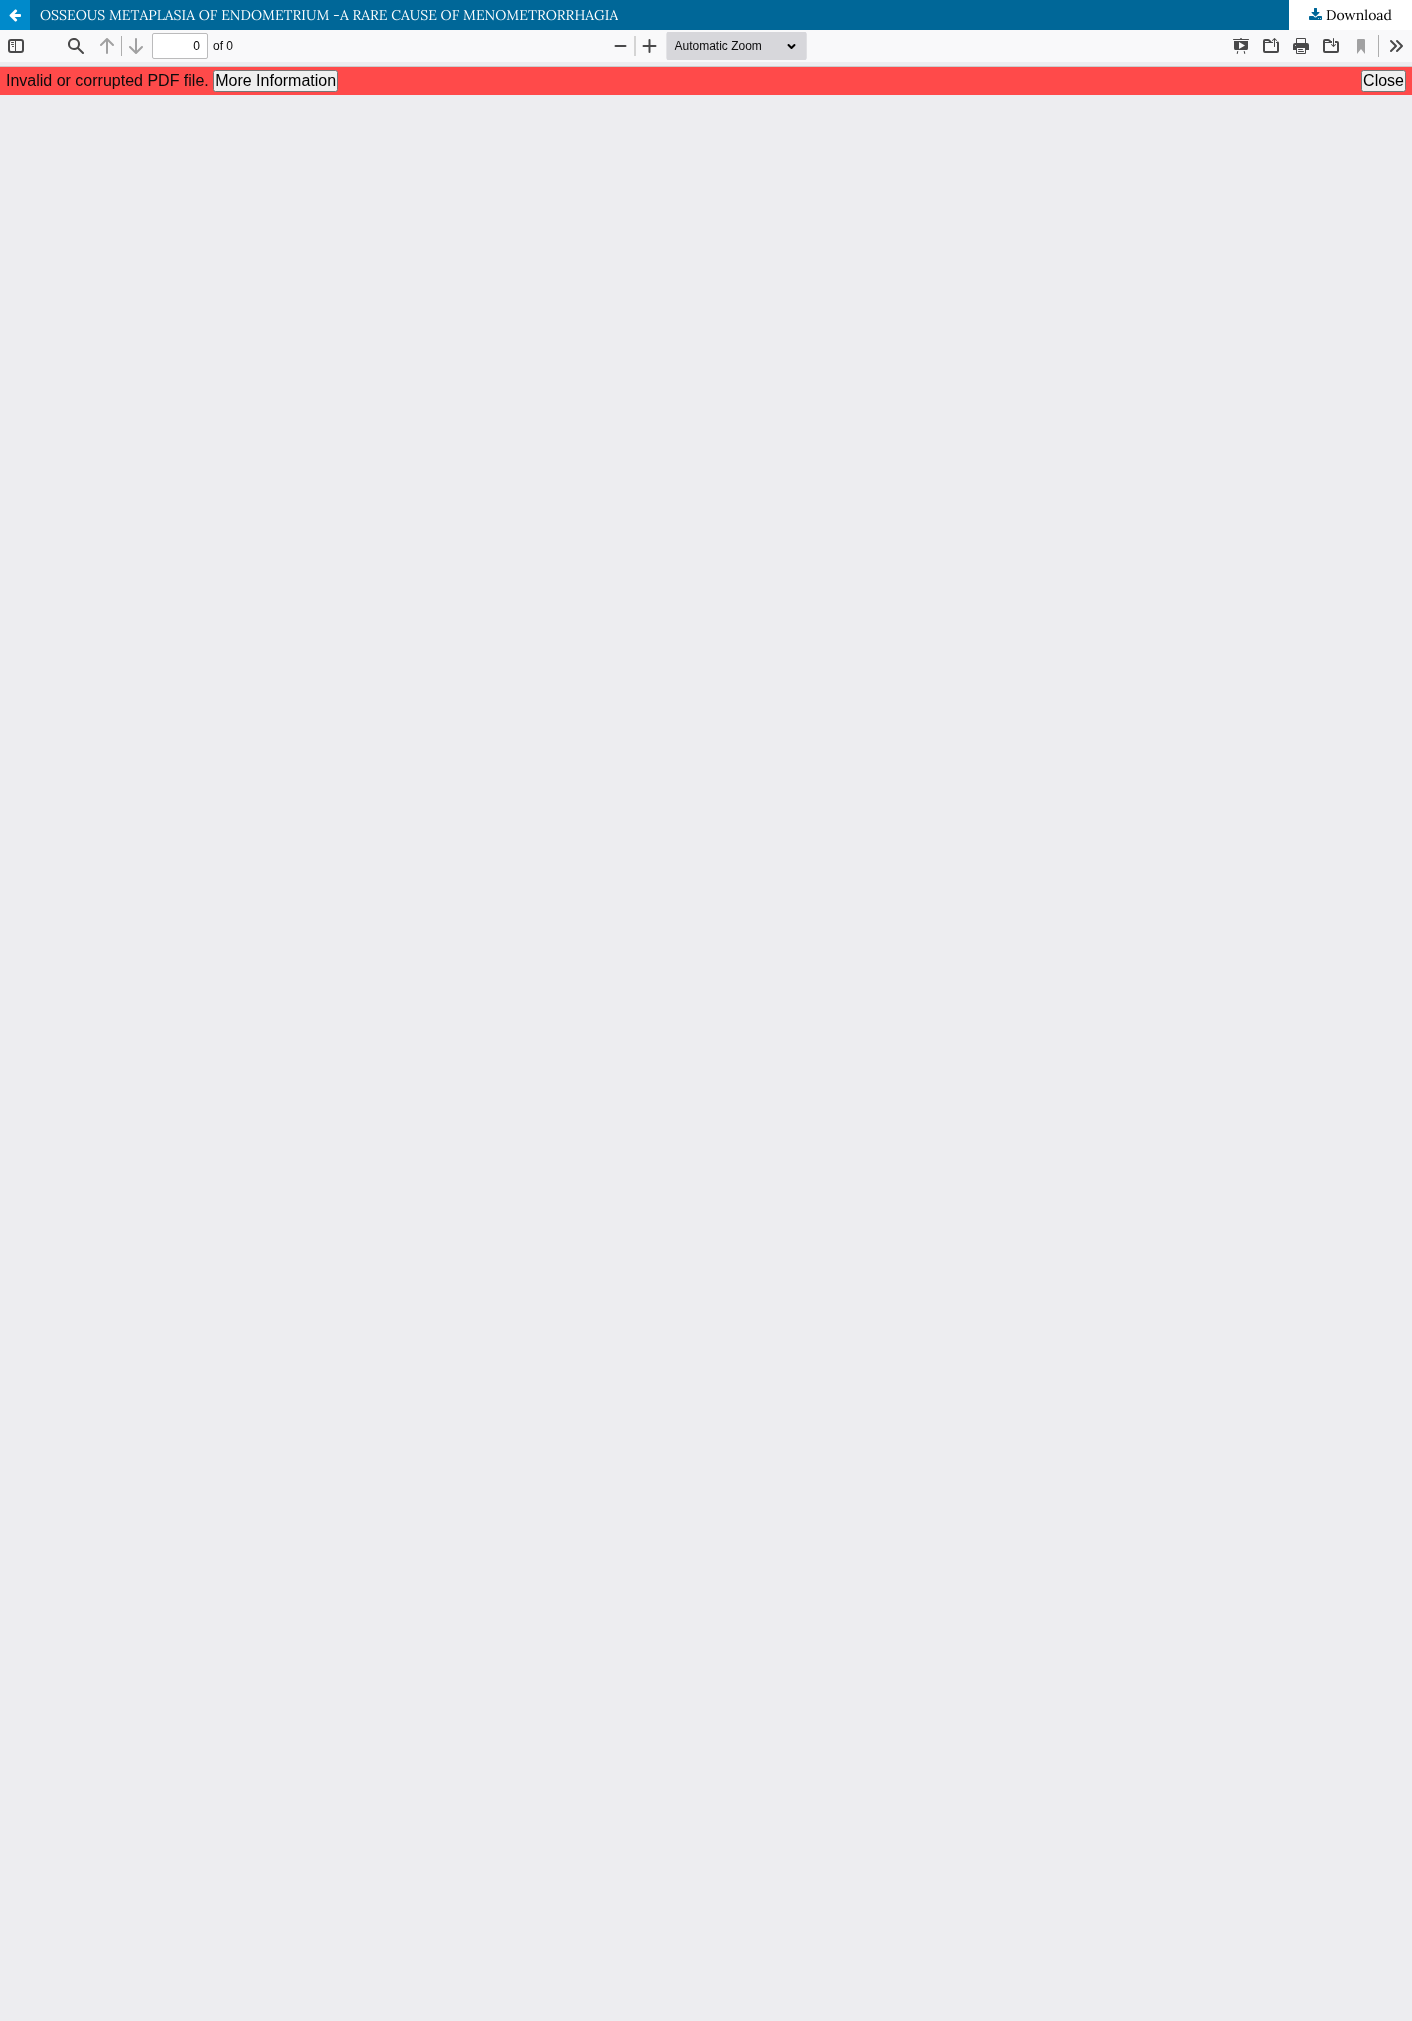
import math
import cairo


def paste(ctx, path, x, y, w, h):
	ctx.save()
	ctx.set_source_surface(cairo.ImageSurface.create_from_png(path), x, y)
	ctx.rectangle(x, y, w, h)
	ctx.fill()
	ctx.restore()

def draw(ctx):
	ctx.set_source_rgb(1, 1, 1)
	ctx.paint()
	ctx.set_source_rgb(0, 0.404, 0.596)
	ctx.rectangle(30, 0, 1259, 30)
	ctx.fill()
	ctx.set_source_rgb(0, 0.541, 0.796)
	ctx.rectangle(0, 0, 30, 30)
	ctx.fill()
	paste(ctx, 'media/1.png', 9, 9, 12, 13)
	ctx.select_font_face('Lora')
	ctx.set_font_size(14)
	ctx.set_source_rgb(1, 1, 1)
	ctx.move_to(40, 20)
	ctx.show_text('OSSEOUS METAPLASIA OF ENDOMETRIUM -A RARE CAUSE OF MENOMETRORRHAGIA')
	paste(ctx, 'media/2.png', 1309, 8, 13, 12)
	ctx.set_source_rgb(0, 0, 0)
	ctx.move_to(1326, 20)
	ctx.show_text('Download')
	paste(ctx, 'media/3.png', 0, 30, 1412, 1991)


surface = cairo.ImageSurface(cairo.FORMAT_RGB24, 1412, 2021)
ctx = cairo.Context(surface)
options = cairo.FontOptions()
options.set_hint_metrics(cairo.HINT_METRICS_OFF)
options.set_hint_style(cairo.HINT_STYLE_NONE)
ctx.set_font_options(options)
ctx.set_miter_limit(4)
draw(ctx)
surface.write_to_png('image.png')
